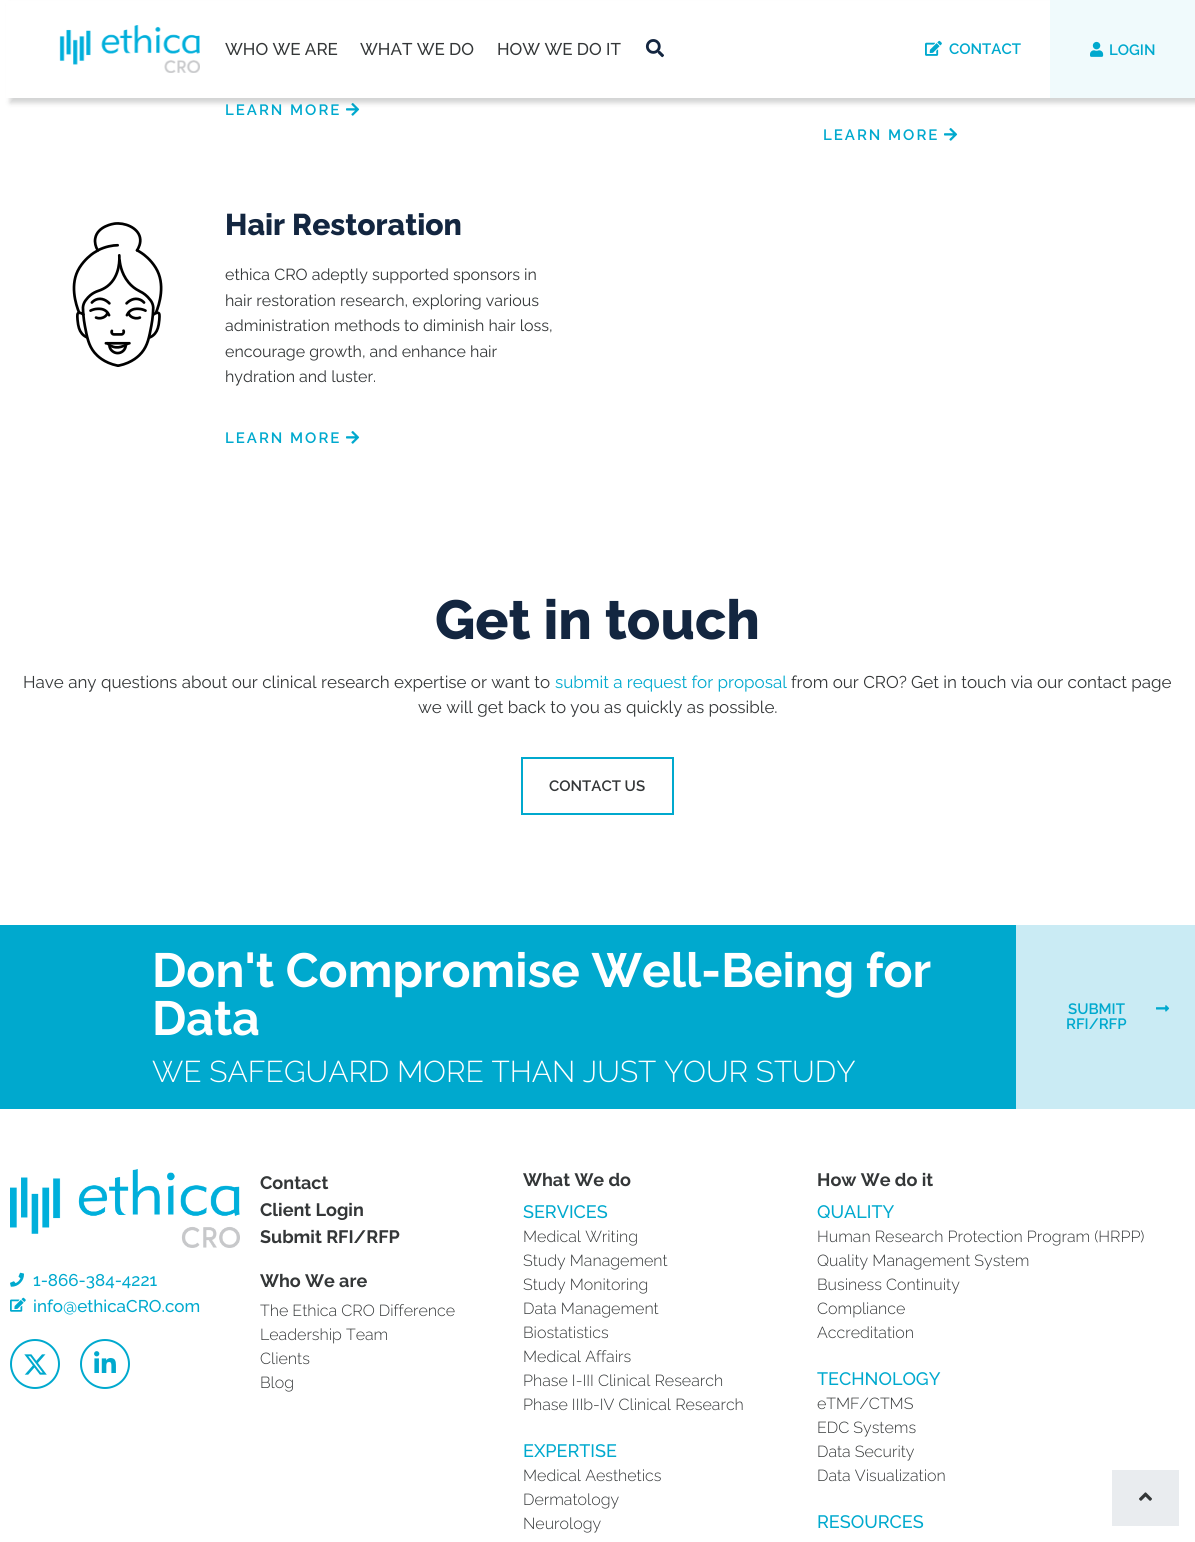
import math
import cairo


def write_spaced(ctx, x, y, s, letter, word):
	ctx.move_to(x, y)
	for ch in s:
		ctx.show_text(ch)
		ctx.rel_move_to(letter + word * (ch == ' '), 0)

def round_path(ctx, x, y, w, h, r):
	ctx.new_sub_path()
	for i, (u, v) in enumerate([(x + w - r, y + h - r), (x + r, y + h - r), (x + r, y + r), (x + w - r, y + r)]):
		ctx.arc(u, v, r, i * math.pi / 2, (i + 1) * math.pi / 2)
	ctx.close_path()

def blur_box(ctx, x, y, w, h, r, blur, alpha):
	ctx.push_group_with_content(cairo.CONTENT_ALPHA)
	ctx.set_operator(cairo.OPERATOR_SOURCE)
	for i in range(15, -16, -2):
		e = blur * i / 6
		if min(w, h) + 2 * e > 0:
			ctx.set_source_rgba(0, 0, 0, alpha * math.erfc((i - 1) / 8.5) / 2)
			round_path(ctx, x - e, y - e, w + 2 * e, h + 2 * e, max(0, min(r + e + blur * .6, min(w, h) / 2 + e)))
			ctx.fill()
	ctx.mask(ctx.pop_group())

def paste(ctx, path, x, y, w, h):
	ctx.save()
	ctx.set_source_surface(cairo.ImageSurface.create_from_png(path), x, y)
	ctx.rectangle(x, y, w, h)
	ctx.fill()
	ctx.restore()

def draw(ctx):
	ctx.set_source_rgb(1, 1, 1)
	ctx.paint()
	paste(ctx, 'media/5.png', 346, 103, 14, 13)
	ctx.set_source_rgb(0.204, 0.216, 0.22)
	blur_box(ctx, 10, 5, 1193, 98, 0, 2.5, 0.22)
	ctx.set_source_rgb(1, 1, 1)
	ctx.rectangle(6, 1, 1044, 97)
	ctx.fill()
	paste(ctx, 'media/1.png', 59, 25, 141, 48)
	ctx.select_font_face('Raleway Medium')
	ctx.set_font_size(17)
	ctx.set_source_rgb(0.204, 0.216, 0.22)
	for x, y, s in [
		(225, 55, 'WHO WE ARE'),
		(360, 55, 'WHAT WE DO'),
		(497, 55, 'HOW WE DO IT'),
	]:
		ctx.move_to(x, y)
		ctx.show_text(s)
	paste(ctx, 'media/2.png', 645, 39, 19, 19)
	paste(ctx, 'media/3.png', 925, 40, 17, 16)
	ctx.select_font_face('Raleway SemiBold')
	ctx.set_font_size(15)
	ctx.set_source_rgb(0, 0.663, 0.808)
	ctx.move_to(949, 54)
	ctx.show_text('CONTACT')
	ctx.set_source_rgb(0.941, 0.98, 0.988)
	ctx.rectangle(1050, 0, 145, 98)
	ctx.fill()
	paste(ctx, 'media/4.png', 1090, 41, 14, 16)
	ctx.set_source_rgb(0, 0.663, 0.808)
	ctx.move_to(1109, 55)
	ctx.show_text('LOGIN')
	write_spaced(ctx, 225, 115, 'LEARN MORE', 2, 0)
	write_spaced(ctx, 823, 140, 'LEARN MORE', 2, 0)
	paste(ctx, 'media/5.png', 944, 128, 14, 13)
	paste(ctx, 'media/6.png', 72, 222, 91, 145)
	ctx.select_font_face('Raleway ExtraBold')
	ctx.set_font_size(30)
	ctx.set_source_rgb(0.078, 0.149, 0.251)
	ctx.move_to(225, 235)
	ctx.show_text('Hair Restoration')
	ctx.select_font_face('Raleway')
	ctx.set_font_size(16)
	ctx.set_source_rgb(0.204, 0.216, 0.22)
	for x, y, s in [
		(225, 280, 'ethica CRO adeptly supported sponsors in'),
		(225, 306, 'hair restoration research, exploring various'),
		(225, 331, 'administration methods to diminish hair loss,'),
		(225, 357, 'encourage growth, and enhance hair'),
		(225, 382, 'hydration and luster.'),
	]:
		ctx.move_to(x, y)
		ctx.show_text(s)
	ctx.select_font_face('Raleway SemiBold')
	ctx.set_font_size(15)
	ctx.set_source_rgb(0, 0.663, 0.808)
	write_spaced(ctx, 225, 443, 'LEARN MORE', 2, 0)
	paste(ctx, 'media/5.png', 346, 431, 14, 13)
	ctx.select_font_face('Raleway ExtraBold')
	ctx.set_font_size(55)
	ctx.set_source_rgb(0.078, 0.149, 0.251)
	ctx.move_to(435, 639)
	ctx.show_text('Get in touch')
	ctx.select_font_face('Raleway')
	ctx.set_font_size(17)
	ctx.set_source_rgb(0.204, 0.216, 0.22)
	ctx.move_to(23, 688)
	ctx.show_text('Have any questions about our clinical research expertise or want to')
	ctx.set_source_rgb(0, 0.663, 0.808)
	ctx.move_to(555, 688)
	ctx.show_text('submit a request for proposal')
	ctx.set_source_rgb(0.204, 0.216, 0.22)
	ctx.move_to(791, 688)
	ctx.show_text('from our CRO? Get in touch via our contact page')
	ctx.move_to(418, 713)
	ctx.show_text('we will get back to you as quickly as possible.')
	ctx.rectangle(522, 758, 151, 56)
	ctx.set_source_rgb(0, 0.663, 0.808)
	ctx.stroke()
	ctx.select_font_face('Raleway SemiBold')
	ctx.set_font_size(15)
	ctx.set_source_rgb(0.204, 0.216, 0.22)
	ctx.move_to(549, 791)
	ctx.show_text('CONTACT US')
	ctx.set_source_rgb(0, 0.663, 0.808)
	ctx.rectangle(0, 925, 1016, 184)
	ctx.fill()
	ctx.select_font_face('Raleway', cairo.FONT_SLANT_NORMAL, cairo.FONT_WEIGHT_BOLD)
	ctx.set_font_size(48)
	ctx.set_source_rgb(1, 1, 1)
	ctx.move_to(152, 987)
	ctx.show_text('Don\'t Compromise Well-Being for')
	ctx.move_to(152, 1035)
	ctx.show_text('Data')
	ctx.select_font_face('Raleway Light')
	ctx.set_font_size(30)
	ctx.move_to(152, 1082)
	ctx.show_text('WE SAFEGUARD MORE THAN JUST YOUR STUDY')
	ctx.set_source_rgb(0.792, 0.918, 0.957)
	ctx.rectangle(1016, 925, 179, 184)
	ctx.fill()
	ctx.select_font_face('Raleway SemiBold')
	ctx.set_font_size(15)
	ctx.set_source_rgb(0, 0.663, 0.808)
	ctx.move_to(1068, 1014)
	ctx.show_text('SUBMIT')
	ctx.move_to(1066, 1029)
	ctx.show_text('RFI/RFP')
	paste(ctx, 'media/7.png', 1156, 1005, 14, 7)
	paste(ctx, 'media/8.png', 10, 1169, 230, 79)
	paste(ctx, 'media/9.png', 10, 1272, 14, 15)
	ctx.select_font_face('Raleway Medium')
	ctx.set_font_size(17)
	ctx.move_to(33, 1286)
	ctx.show_text('1-866-384-4221')
	paste(ctx, 'media/10.png', 10, 1297, 16, 15)
	ctx.move_to(33, 1312)
	ctx.show_text('info@ethicaCRO.com')
	ctx.new_path()
	ctx.arc(35, 1364, 24, 0, 2 * math.pi)
	ctx.stroke()
	paste(ctx, 'media/11.png', 24, 1354, 23, 21)
	ctx.arc(105, 1364, 24, 0, 2 * math.pi)
	ctx.stroke()
	paste(ctx, 'media/12.png', 94, 1351, 22, 22)
	ctx.select_font_face('Raleway', cairo.FONT_SLANT_NORMAL, cairo.FONT_WEIGHT_BOLD)
	ctx.set_font_size(18)
	ctx.set_source_rgb(0.204, 0.216, 0.22)
	for x, y, s in [
		(260, 1189, 'Contact'),
		(260, 1216, 'Client Login'),
		(260, 1243, 'Submit RFI/RFP'),
		(260, 1287, 'Who We are'),
	]:
		ctx.move_to(x, y)
		ctx.show_text(s)
	ctx.select_font_face('Raleway Light')
	ctx.set_font_size(16)
	for x, y, s in [
		(260, 1316, 'The Ethica CRO Difference'),
		(260, 1340, 'Leadership Team'),
		(260, 1364, 'Clients'),
		(260, 1388, 'Blog'),
	]:
		ctx.move_to(x, y)
		ctx.show_text(s)
	ctx.select_font_face('Raleway', cairo.FONT_SLANT_NORMAL, cairo.FONT_WEIGHT_BOLD)
	ctx.set_font_size(18)
	ctx.move_to(523, 1186)
	ctx.show_text('What We do')
	ctx.select_font_face('Raleway Medium')
	ctx.set_source_rgb(0, 0.663, 0.808)
	ctx.move_to(523, 1218)
	ctx.show_text('SERVICES')
	ctx.select_font_face('Raleway Light')
	ctx.set_font_size(16)
	ctx.set_source_rgb(0.204, 0.216, 0.22)
	for x, y, s in [
		(523, 1242, 'Medical Writing'),
		(523, 1266, 'Study Management'),
		(523, 1290, 'Study Monitoring'),
		(523, 1314, 'Data Management'),
		(523, 1338, 'Biostatistics'),
		(523, 1362, 'Medical Affairs'),
		(523, 1386, 'Phase I-III Clinical Research'),
		(523, 1410, 'Phase IIIb-IV Clinical Research'),
	]:
		ctx.move_to(x, y)
		ctx.show_text(s)
	ctx.select_font_face('Raleway Medium')
	ctx.set_font_size(18)
	ctx.set_source_rgb(0, 0.663, 0.808)
	ctx.move_to(523, 1457)
	ctx.show_text('EXPERTISE')
	ctx.select_font_face('Raleway Light')
	ctx.set_font_size(16)
	ctx.set_source_rgb(0.204, 0.216, 0.22)
	for x, y, s in [
		(523, 1481, 'Medical Aesthetics'),
		(523, 1505, 'Dermatology'),
		(523, 1529, 'Neurology'),
	]:
		ctx.move_to(x, y)
		ctx.show_text(s)
	ctx.select_font_face('Raleway', cairo.FONT_SLANT_NORMAL, cairo.FONT_WEIGHT_BOLD)
	ctx.set_font_size(18)
	ctx.move_to(817, 1186)
	ctx.show_text('How We do it')
	ctx.select_font_face('Raleway Medium')
	ctx.set_source_rgb(0, 0.663, 0.808)
	ctx.move_to(817, 1218)
	ctx.show_text('QUALITY')
	ctx.select_font_face('Raleway Light')
	ctx.set_font_size(16)
	ctx.set_source_rgb(0.204, 0.216, 0.22)
	for x, y, s in [
		(817, 1242, 'Human Research Protection Program (HRPP)'),
		(817, 1266, 'Quality Management System'),
		(817, 1290, 'Business Continuity'),
		(817, 1314, 'Compliance'),
		(817, 1338, 'Accreditation'),
	]:
		ctx.move_to(x, y)
		ctx.show_text(s)
	ctx.select_font_face('Raleway Medium')
	ctx.set_font_size(18)
	ctx.set_source_rgb(0, 0.663, 0.808)
	ctx.move_to(817, 1385)
	ctx.show_text('TECHNOLOGY')
	ctx.select_font_face('Raleway Light')
	ctx.set_font_size(16)
	ctx.set_source_rgb(0.204, 0.216, 0.22)
	for x, y, s in [
		(817, 1409, 'eTMF/CTMS'),
		(817, 1433, 'EDC Systems'),
		(817, 1457, 'Data Security'),
		(817, 1481, 'Data Visualization'),
	]:
		ctx.move_to(x, y)
		ctx.show_text(s)
	ctx.select_font_face('Raleway Medium')
	ctx.set_font_size(18)
	ctx.set_source_rgb(0, 0.663, 0.808)
	ctx.move_to(817, 1528)
	ctx.show_text('RESOURCES')
	ctx.set_source_rgb(0.914, 0.925, 0.937)
	ctx.rectangle(1112, 1470, 67, 56)
	ctx.fill()
	paste(ctx, 'media/13.png', 1139, 1492, 13, 9)


surface = cairo.ImageSurface(cairo.FORMAT_RGB24, 1195, 1542)
ctx = cairo.Context(surface)
options = cairo.FontOptions()
options.set_hint_metrics(cairo.HINT_METRICS_OFF)
options.set_hint_style(cairo.HINT_STYLE_NONE)
ctx.set_font_options(options)
ctx.set_miter_limit(4)
draw(ctx)
surface.write_to_png('image.png')
